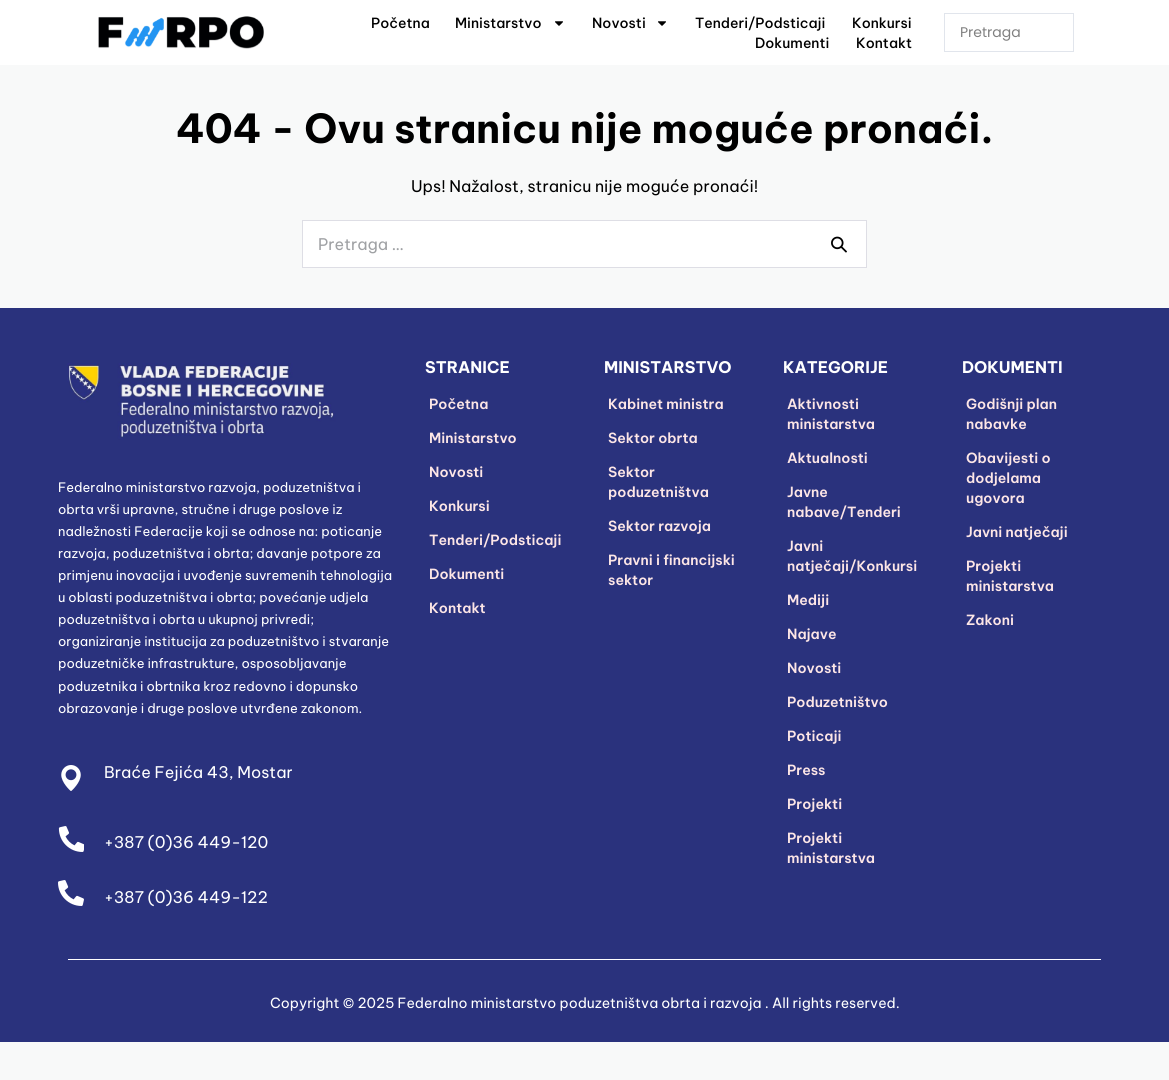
import math
import cairo


def paste(ctx, path, x, y, w, h):
	ctx.save()
	ctx.set_source_surface(cairo.ImageSurface.create_from_png(path), x, y)
	ctx.rectangle(x, y, w, h)
	ctx.fill()
	ctx.restore()

def draw(ctx):
	ctx.set_source_rgb(0.969, 0.973, 0.976)
	ctx.paint()
	ctx.set_source_rgb(1, 1, 1)
	ctx.rectangle(0, 0, 1169, 65)
	ctx.fill()
	paste(ctx, 'media/1.png', 98, 16, 166, 33)
	ctx.select_font_face('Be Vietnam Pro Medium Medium')
	ctx.set_font_size(14)
	ctx.set_source_rgb(0, 0, 0)
	ctx.move_to(371, 28)
	ctx.show_text('Početna')
	ctx.move_to(455, 28)
	ctx.show_text('Ministarstvo')
	paste(ctx, 'media/2.png', 555, 21, 8, 5)
	ctx.move_to(592, 28)
	ctx.show_text('Novosti')
	paste(ctx, 'media/2.png', 658, 21, 8, 5)
	for x, y, s in [
		(695, 28, 'Tenderi/Podsticaji'),
		(852, 28, 'Konkursi'),
		(755, 48, 'Dokumenti'),
		(856, 48, 'Kontakt'),
	]:
		ctx.move_to(x, y)
		ctx.show_text(s)
	ctx.rectangle(944.5, 13.5, 129, 38)
	ctx.set_source_rgb(0.882, 0.898, 0.922)
	ctx.set_line_width(1)
	ctx.stroke()
	ctx.select_font_face('Poppins')
	ctx.set_source_rgb(0.502, 0.502, 0.502)
	ctx.move_to(960, 37)
	ctx.show_text('Pretraga')
	ctx.select_font_face('Be Vietnam Pro', cairo.FONT_SLANT_NORMAL, cairo.FONT_WEIGHT_BOLD)
	ctx.set_font_size(40)
	ctx.set_source_rgb(0, 0, 0)
	ctx.move_to(176, 143)
	ctx.show_text('404 - Ovu stranicu nije moguće pronaći.')
	ctx.select_font_face('Be Vietnam Pro')
	ctx.set_font_size(16)
	ctx.move_to(411, 192)
	ctx.show_text('Ups! Nažalost, stranicu nije moguće pronaći!')
	ctx.set_source_rgb(1, 1, 1)
	ctx.rectangle(302.5, 220.5, 564, 47)
	ctx.fill_preserve()
	ctx.set_source_rgb(0.871, 0.871, 0.898)
	ctx.stroke()
	ctx.set_source_rgb(0.624, 0.631, 0.643)
	ctx.move_to(318, 250)
	ctx.show_text('Pretraga …')
	paste(ctx, 'media/3.png', 831, 236, 16, 17)
	ctx.set_source_rgb(0.165, 0.196, 0.49)
	ctx.rectangle(0, 308, 1169, 734)
	ctx.fill()
	paste(ctx, 'media/4.png', 67, 363, 269, 77)
	ctx.set_font_size(13)
	ctx.set_source_rgb(1, 1, 1)
	for x, y, s in [
		(58, 492, 'Federalno ministarstvo razvoja, poduzetništva i'),
		(58, 514, 'obrta vrši upravne, stručne i druge poslove iz'),
		(58, 536, 'nadležnosti Federacije koji se odnose na: poticanje'),
		(58, 558, 'razvoja, poduzetništva i obrta; davanje potpore za'),
		(58, 580, 'primjenu inovacija i uvođenje suvremenih tehnologija'),
		(58, 602, 'u oblasti poduzetništva i obrta; povećanje udjela'),
		(58, 624, 'poduzetništva i obrta u ukupnoj privredi;'),
		(58, 646, 'organiziranje institucija za poduzetništvo i stvaranje'),
		(58, 668, 'poduzetničke infrastrukture, osposobljavanje'),
		(58, 691, 'poduzetnika i obrtnika kroz redovno i dopunsko'),
		(58, 713, 'obrazovanje i druge poslove utvrđene zakonom.'),
	]:
		ctx.move_to(x, y)
		ctx.show_text(s)
	paste(ctx, 'media/5.png', 61, 765, 20, 26)
	ctx.set_font_size(16)
	ctx.move_to(104, 778)
	ctx.show_text('Braće Fejića 43, Mostar')
	paste(ctx, 'media/6.png', 58, 826, 26, 26)
	ctx.move_to(104, 848)
	ctx.show_text('+387 (0)36 449-120')
	paste(ctx, 'media/7.png', 58, 880, 26, 26)
	ctx.move_to(104, 903)
	ctx.show_text('+387 (0)36 449-122')
	ctx.select_font_face('Be Vietnam Pro', cairo.FONT_SLANT_NORMAL, cairo.FONT_WEIGHT_BOLD)
	ctx.move_to(425, 373)
	ctx.show_text('STRANICE')
	ctx.select_font_face('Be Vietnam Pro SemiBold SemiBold')
	ctx.set_font_size(14)
	ctx.set_source_rgb(0.992, 0.902, 0.902)
	for x, y, s in [
		(429, 409, 'Početna'),
		(429, 443, 'Ministarstvo'),
		(429, 477, 'Novosti'),
		(429, 511, 'Konkursi'),
		(429, 545, 'Tenderi/Podsticaji'),
		(429, 579, 'Dokumenti'),
		(429, 613, 'Kontakt'),
	]:
		ctx.move_to(x, y)
		ctx.show_text(s)
	ctx.select_font_face('Be Vietnam Pro', cairo.FONT_SLANT_NORMAL, cairo.FONT_WEIGHT_BOLD)
	ctx.set_font_size(16)
	ctx.set_source_rgb(1, 1, 1)
	ctx.move_to(604, 373)
	ctx.show_text('MINISTARSTVO')
	ctx.select_font_face('Be Vietnam Pro SemiBold SemiBold')
	ctx.set_font_size(14)
	ctx.set_source_rgb(0.992, 0.902, 0.902)
	for x, y, s in [
		(608, 409, 'Kabinet ministra'),
		(608, 443, 'Sektor obrta'),
		(608, 477, 'Sektor'),
		(608, 497, 'poduzetništva'),
		(608, 531, 'Sektor razvoja'),
		(608, 565, 'Pravni i financijski'),
		(608, 585, 'sektor'),
	]:
		ctx.move_to(x, y)
		ctx.show_text(s)
	ctx.select_font_face('Be Vietnam Pro', cairo.FONT_SLANT_NORMAL, cairo.FONT_WEIGHT_BOLD)
	ctx.set_font_size(16)
	ctx.set_source_rgb(1, 1, 1)
	ctx.move_to(783, 373)
	ctx.show_text('KATEGORIJE')
	ctx.select_font_face('Be Vietnam Pro SemiBold SemiBold')
	ctx.set_font_size(14)
	ctx.set_source_rgb(0.992, 0.902, 0.902)
	for x, y, s in [
		(787, 409, 'Aktivnosti'),
		(787, 429, 'ministarstva'),
		(787, 463, 'Aktualnosti'),
		(787, 497, 'Javne'),
		(787, 517, 'nabave/Tenderi'),
		(787, 551, 'Javni'),
		(787, 571, 'natječaji/Konkursi'),
		(787, 605, 'Mediji'),
		(787, 639, 'Najave'),
		(787, 673, 'Novosti'),
		(787, 707, 'Poduzetništvo'),
		(787, 741, 'Poticaji'),
		(787, 775, 'Press'),
		(787, 809, 'Projekti'),
		(787, 843, 'Projekti'),
		(787, 863, 'ministarstva'),
	]:
		ctx.move_to(x, y)
		ctx.show_text(s)
	ctx.select_font_face('Be Vietnam Pro', cairo.FONT_SLANT_NORMAL, cairo.FONT_WEIGHT_BOLD)
	ctx.set_font_size(16)
	ctx.set_source_rgb(1, 1, 1)
	ctx.move_to(962, 373)
	ctx.show_text('DOKUMENTI')
	ctx.select_font_face('Be Vietnam Pro SemiBold SemiBold')
	ctx.set_font_size(14)
	ctx.set_source_rgb(0.992, 0.902, 0.902)
	for x, y, s in [
		(966, 409, 'Godišnji plan'),
		(966, 429, 'nabavke'),
		(966, 463, 'Obavijesti o'),
		(966, 483, 'dodjelama'),
		(966, 503, 'ugovora'),
		(966, 537, 'Javni natječaji'),
		(966, 571, 'Projekti'),
		(966, 591, 'ministarstva'),
		(966, 625, 'Zakoni'),
	]:
		ctx.move_to(x, y)
		ctx.show_text(s)
	ctx.set_source_rgb(1, 1, 1)
	ctx.rectangle(68, 959, 1033, 1)
	ctx.fill()
	ctx.select_font_face('Be Vietnam Pro')
	ctx.move_to(270, 1008)
	ctx.show_text('Copyright © 2025 Federalno ministarstvo poduzetništva obrta i razvoja . All rights reserved.')


surface = cairo.ImageSurface(cairo.FORMAT_RGB24, 1169, 1080)
ctx = cairo.Context(surface)
options = cairo.FontOptions()
options.set_hint_metrics(cairo.HINT_METRICS_OFF)
options.set_hint_style(cairo.HINT_STYLE_NONE)
ctx.set_font_options(options)
ctx.set_miter_limit(4)
draw(ctx)
surface.write_to_png('image.png')
